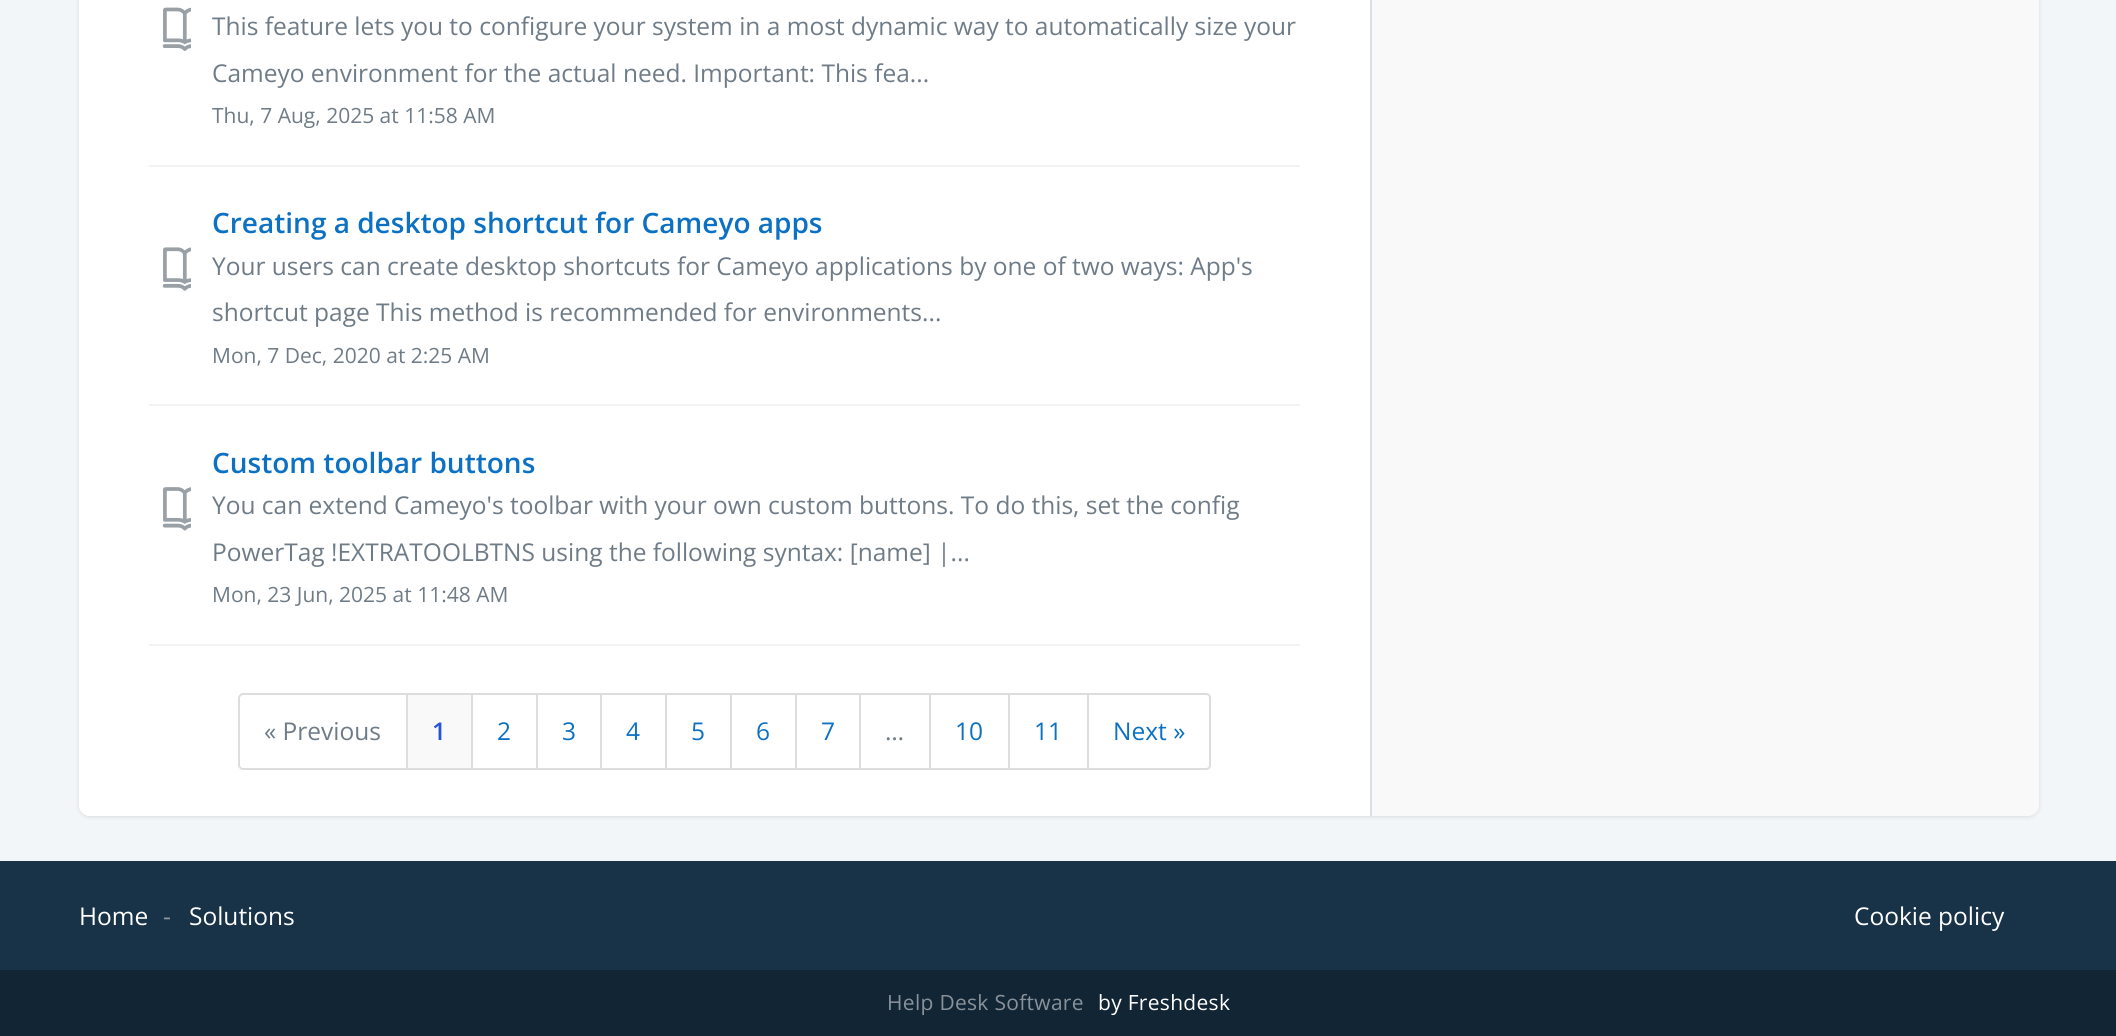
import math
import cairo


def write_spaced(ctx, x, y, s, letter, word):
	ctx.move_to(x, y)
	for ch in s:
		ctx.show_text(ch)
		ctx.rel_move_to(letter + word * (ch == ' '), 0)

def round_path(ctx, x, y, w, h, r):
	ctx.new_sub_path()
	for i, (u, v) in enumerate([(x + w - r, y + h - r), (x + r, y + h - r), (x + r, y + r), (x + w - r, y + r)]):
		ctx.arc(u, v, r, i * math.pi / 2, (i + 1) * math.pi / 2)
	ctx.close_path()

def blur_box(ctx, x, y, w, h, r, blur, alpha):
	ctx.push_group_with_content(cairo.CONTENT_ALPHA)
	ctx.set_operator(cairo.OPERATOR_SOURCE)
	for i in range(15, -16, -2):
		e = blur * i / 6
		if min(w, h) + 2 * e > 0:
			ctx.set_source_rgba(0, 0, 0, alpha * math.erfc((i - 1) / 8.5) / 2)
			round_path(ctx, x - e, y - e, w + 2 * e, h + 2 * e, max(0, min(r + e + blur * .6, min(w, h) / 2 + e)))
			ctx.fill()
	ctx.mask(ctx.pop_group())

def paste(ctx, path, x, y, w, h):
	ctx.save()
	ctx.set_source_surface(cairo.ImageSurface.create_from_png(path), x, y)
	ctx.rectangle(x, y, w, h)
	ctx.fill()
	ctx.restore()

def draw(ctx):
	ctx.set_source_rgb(0.953, 0.961, 0.969)
	ctx.paint()
	ctx.set_source_rgb(0.247, 0.247, 0.267)
	blur_box(ctx, 79, -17, 1960, 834, 11, 2, 0.15)
	ctx.set_source_rgb(0.973, 0.976, 0.98)
	round_path(ctx, 79, -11, 1960, 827, 11)
	ctx.fill()
	ctx.set_source_rgb(1, 1, 1)
	ctx.new_path()
	ctx.move_to(90, -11)
	ctx.line_to(1372, -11)
	ctx.line_to(1372, 816)
	ctx.line_to(90, 816)
	ctx.curve_to(84, 816, 79, 811, 79, 805)
	ctx.line_to(79, 0)
	ctx.curve_to(79, -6, 84, -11, 90, -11)
	ctx.close_path()
	ctx.fill()
	ctx.set_source_rgb(0.855, 0.875, 0.89)
	ctx.rectangle(1370, 0, 2, 816)
	ctx.fill()
	ctx.set_source_rgb(0.953, 0.953, 0.953)
	ctx.rectangle(149, 644, 1151, 2)
	ctx.fill()
	paste(ctx, 'media/1.png', 162, 7, 29, 44)
	ctx.select_font_face('Open Sans')
	ctx.set_font_size(24.5)
	ctx.set_source_rgb(0.435, 0.486, 0.529)
	ctx.move_to(212, 35)
	ctx.show_text('This feature lets you to configure your system in a most dynamic way to automatically size your')
	ctx.move_to(212, 82)
	ctx.show_text('Cameyo environment for the actual need. Important: This fea...')
	ctx.set_font_size(21)
	ctx.move_to(212, 123)
	ctx.show_text('Thu, 7 Aug, 2025 at 11:58 AM')
	ctx.set_source_rgb(0.953, 0.953, 0.953)
	ctx.rectangle(149, 165, 1151, 2)
	ctx.fill()
	ctx.select_font_face('Open Sans SemiBold')
	ctx.set_font_size(28)
	ctx.set_source_rgb(0.047, 0.443, 0.765)
	ctx.move_to(212, 233)
	ctx.show_text('Creating a desktop shortcut for Cameyo apps')
	paste(ctx, 'media/2.png', 162, 247, 29, 44)
	ctx.select_font_face('Open Sans')
	ctx.set_font_size(24.5)
	ctx.set_source_rgb(0.435, 0.486, 0.529)
	ctx.move_to(212, 275)
	ctx.show_text('Your users can create desktop shortcuts for Cameyo applications by one of two ways: App\'s')
	ctx.move_to(212, 321)
	ctx.show_text('shortcut page This method is recommended for environments...')
	ctx.set_font_size(21)
	ctx.move_to(212, 363)
	ctx.show_text('Mon, 7 Dec, 2020 at 2:25 AM')
	ctx.set_source_rgb(0.953, 0.953, 0.953)
	ctx.rectangle(149, 404, 1151, 2)
	ctx.fill()
	ctx.select_font_face('Open Sans SemiBold')
	ctx.set_font_size(28)
	ctx.set_source_rgb(0.047, 0.443, 0.765)
	ctx.move_to(212, 473)
	ctx.show_text('Custom toolbar buttons')
	paste(ctx, 'media/3.png', 162, 487, 29, 44)
	ctx.select_font_face('Open Sans')
	ctx.set_font_size(24.5)
	ctx.set_source_rgb(0.435, 0.486, 0.529)
	ctx.move_to(212, 514)
	ctx.show_text('You can extend Cameyo\'s toolbar with your own custom buttons. To do this, set the config')
	ctx.move_to(212, 561)
	ctx.show_text('PowerTag !EXTRATOOLBTNS using the following syntax: [name] |...')
	ctx.set_font_size(21)
	ctx.move_to(212, 602)
	ctx.show_text('Mon, 23 Jun, 2025 at 11:48 AM')
	ctx.new_path()
	ctx.move_to(243, 694)
	ctx.line_to(407, 694)
	ctx.line_to(407, 769)
	ctx.line_to(243, 769)
	ctx.curve_to(241, 769, 239, 767, 239, 765)
	ctx.line_to(239, 698)
	ctx.curve_to(239, 696, 241, 694, 243, 694)
	ctx.close_path()
	ctx.set_source_rgb(0.867, 0.867, 0.867)
	ctx.stroke()
	ctx.set_font_size(24.5)
	ctx.set_source_rgb(0.435, 0.486, 0.529)
	ctx.move_to(264, 740)
	ctx.show_text('« Previous')
	ctx.set_source_rgb(0.973, 0.976, 0.98)
	ctx.rectangle(408, 695, 63, 73)
	ctx.fill()
	ctx.set_source_rgb(0.867, 0.867, 0.867)
	ctx.rectangle(408, 693, 129, 2)
	ctx.rectangle(471, 693, 2, 77)
	ctx.rectangle(408, 768, 65, 2)
	ctx.fill()
	ctx.select_font_face('Open Sans SemiBold')
	ctx.set_source_rgb(0.153, 0.325, 0.843)
	ctx.move_to(432, 740)
	ctx.show_text('1')
	ctx.set_source_rgb(0.867, 0.867, 0.867)
	ctx.rectangle(536, 693, 2, 77)
	ctx.fill()
	ctx.rectangle(473, 768, 64, 2)
	ctx.fill()
	ctx.select_font_face('Open Sans')
	ctx.set_source_rgb(0.047, 0.443, 0.765)
	ctx.move_to(497, 740)
	ctx.show_text('2')
	ctx.set_source_rgb(0.867, 0.867, 0.867)
	ctx.rectangle(537, 693, 259, 2)
	ctx.rectangle(600, 693, 2, 77)
	ctx.rectangle(537, 768, 65, 2)
	ctx.fill()
	ctx.set_source_rgb(0.047, 0.443, 0.765)
	ctx.move_to(562, 740)
	ctx.show_text('3')
	ctx.set_source_rgb(0.867, 0.867, 0.867)
	ctx.rectangle(665, 693, 2, 77)
	ctx.fill()
	ctx.rectangle(602, 768, 65, 2)
	ctx.fill()
	ctx.set_source_rgb(0.047, 0.443, 0.765)
	ctx.move_to(626, 740)
	ctx.show_text('4')
	ctx.set_source_rgb(0.867, 0.867, 0.867)
	ctx.rectangle(730, 693, 2, 77)
	ctx.fill()
	ctx.rectangle(667, 768, 65, 2)
	ctx.fill()
	ctx.set_source_rgb(0.047, 0.443, 0.765)
	ctx.move_to(691, 740)
	ctx.show_text('5')
	ctx.set_source_rgb(0.867, 0.867, 0.867)
	ctx.rectangle(795, 693, 2, 77)
	ctx.fill()
	ctx.rectangle(732, 768, 64, 2)
	ctx.fill()
	ctx.set_source_rgb(0.047, 0.443, 0.765)
	ctx.move_to(756, 740)
	ctx.show_text('6')
	ctx.set_source_rgb(0.867, 0.867, 0.867)
	ctx.rectangle(796, 693, 293, 2)
	ctx.rectangle(859, 693, 2, 77)
	ctx.rectangle(796, 768, 65, 2)
	ctx.fill()
	ctx.set_source_rgb(0.047, 0.443, 0.765)
	ctx.move_to(821, 740)
	ctx.show_text('7')
	ctx.set_source_rgb(0.867, 0.867, 0.867)
	ctx.rectangle(929, 693, 2, 77)
	ctx.fill()
	ctx.rectangle(861, 768, 70, 2)
	ctx.fill()
	ctx.set_source_rgb(0.435, 0.486, 0.529)
	ctx.move_to(885, 740)
	ctx.show_text('…')
	ctx.set_source_rgb(0.867, 0.867, 0.867)
	ctx.rectangle(1008, 693, 2, 77)
	ctx.fill()
	ctx.rectangle(931, 768, 79, 2)
	ctx.fill()
	ctx.set_source_rgb(0.047, 0.443, 0.765)
	ctx.move_to(955, 740)
	ctx.show_text('10')
	ctx.set_source_rgb(0.867, 0.867, 0.867)
	ctx.rectangle(1087, 693, 2, 77)
	ctx.fill()
	ctx.rectangle(1010, 768, 79, 2)
	ctx.fill()
	ctx.set_source_rgb(0.047, 0.443, 0.765)
	ctx.move_to(1034, 740)
	ctx.show_text('11')
	ctx.set_source_rgb(0.867, 0.867, 0.867)
	ctx.set_fill_rule(cairo.FILL_RULE_EVEN_ODD)
	ctx.new_path()
	ctx.move_to(1088, 693)
	ctx.line_to(1206, 693)
	ctx.curve_to(1209, 693, 1211, 695, 1211, 698)
	ctx.line_to(1211, 765)
	ctx.curve_to(1211, 768, 1209, 770, 1206, 770)
	ctx.line_to(1088, 770)
	ctx.close_path()
	ctx.move_to(1088, 695)
	ctx.line_to(1206, 695)
	ctx.curve_to(1208, 695, 1209, 696, 1209, 698)
	ctx.line_to(1209, 765)
	ctx.curve_to(1209, 767, 1208, 768, 1206, 768)
	ctx.line_to(1088, 768)
	ctx.close_path()
	ctx.fill()
	ctx.set_source_rgb(0.047, 0.443, 0.765)
	ctx.move_to(1113, 740)
	ctx.show_text('Next »')
	ctx.set_source_rgb(0.094, 0.196, 0.278)
	ctx.rectangle(0, 861, 2116, 109)
	ctx.fill()
	ctx.set_source_rgb(1, 1, 1)
	ctx.move_to(79, 925)
	ctx.show_text('Home')
	ctx.set_source_rgb(0.549, 0.6, 0.639)
	ctx.move_to(163, 925)
	ctx.show_text('-')
	ctx.set_source_rgb(1, 1, 1)
	ctx.move_to(189, 925)
	ctx.show_text('Solutions')
	ctx.move_to(1854, 925)
	ctx.show_text('Cookie policy')
	ctx.set_source_rgb(0.071, 0.145, 0.204)
	ctx.rectangle(0, 970, 2116, 66)
	ctx.fill()
	ctx.set_font_size(21)
	ctx.set_source_rgb(0.537, 0.573, 0.604)
	write_spaced(ctx, 887, 1010, 'Help Desk Software', 0.3, 0)
	ctx.set_source_rgb(1, 1, 1)
	write_spaced(ctx, 1098, 1010, 'by Freshdesk', 0.3, 0)


surface = cairo.ImageSurface(cairo.FORMAT_RGB24, 2116, 1036)
ctx = cairo.Context(surface)
options = cairo.FontOptions()
options.set_hint_metrics(cairo.HINT_METRICS_OFF)
options.set_hint_style(cairo.HINT_STYLE_NONE)
ctx.set_font_options(options)
ctx.set_miter_limit(4)
draw(ctx)
surface.write_to_png('image.png')
